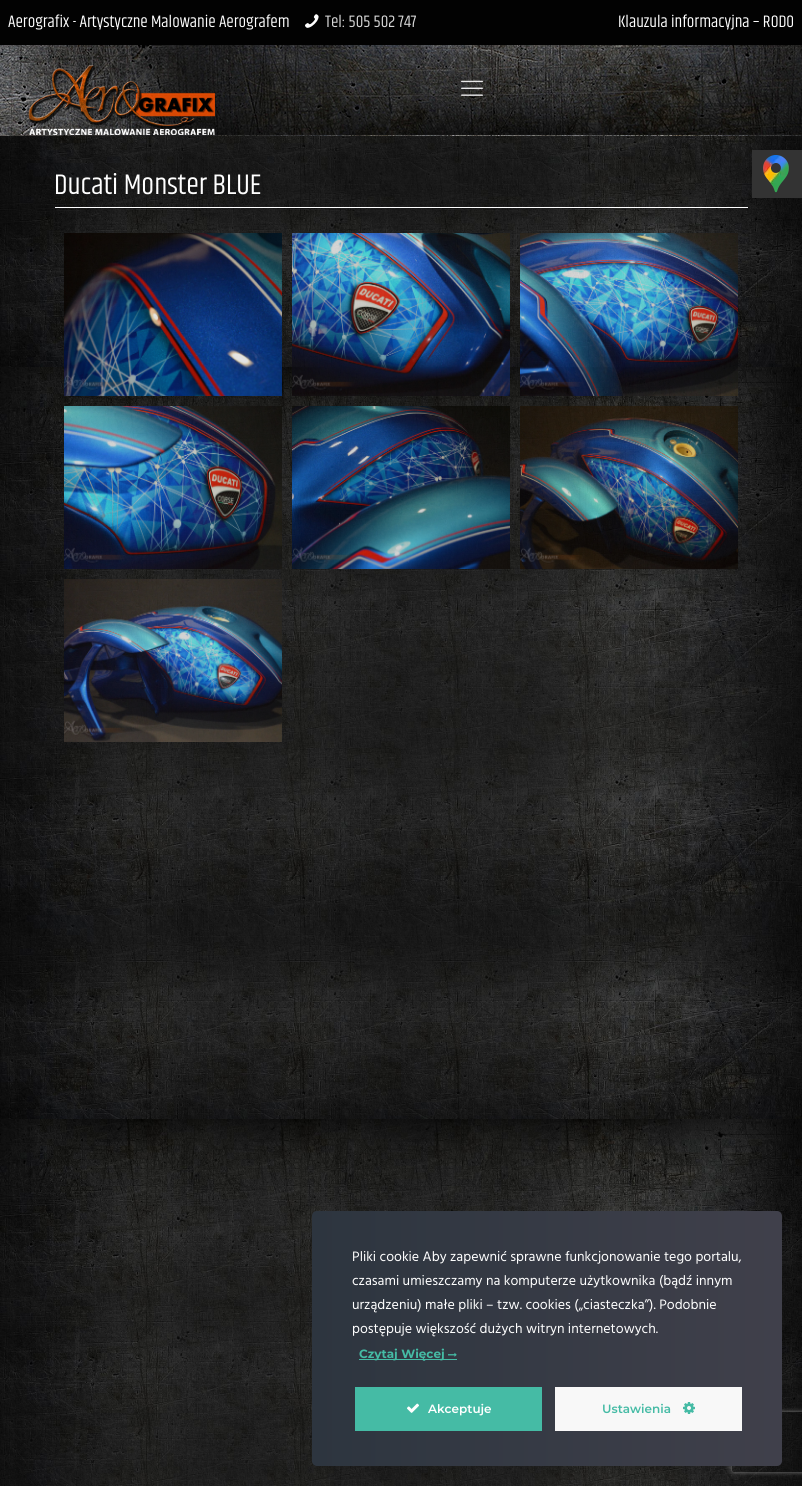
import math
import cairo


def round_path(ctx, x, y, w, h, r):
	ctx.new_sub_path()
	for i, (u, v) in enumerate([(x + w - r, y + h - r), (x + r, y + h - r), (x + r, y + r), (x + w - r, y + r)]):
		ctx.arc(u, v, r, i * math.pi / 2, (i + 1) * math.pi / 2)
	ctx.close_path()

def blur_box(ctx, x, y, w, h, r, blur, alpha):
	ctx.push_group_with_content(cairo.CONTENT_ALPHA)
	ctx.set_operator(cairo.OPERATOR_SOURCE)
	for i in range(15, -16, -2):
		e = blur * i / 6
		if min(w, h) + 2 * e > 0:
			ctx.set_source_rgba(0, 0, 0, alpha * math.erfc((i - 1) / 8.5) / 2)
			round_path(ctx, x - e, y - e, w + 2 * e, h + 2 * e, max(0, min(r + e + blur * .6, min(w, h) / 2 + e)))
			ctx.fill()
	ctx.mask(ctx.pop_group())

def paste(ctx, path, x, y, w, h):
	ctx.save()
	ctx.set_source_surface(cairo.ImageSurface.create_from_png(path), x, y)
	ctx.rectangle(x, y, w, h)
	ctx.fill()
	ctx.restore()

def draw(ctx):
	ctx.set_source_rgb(0.008, 0.008, 0.008)
	ctx.paint()
	ctx.select_font_face('Khand')
	ctx.set_font_size(17)
	ctx.set_source_rgb(1, 1, 1)
	ctx.move_to(8, 27)
	ctx.show_text('Aerografix - Artystyczne Malowanie Aerografem')
	paste(ctx, 'media/1.png', 305, 14, 14, 14)
	ctx.set_source_rgb(0.839, 0.839, 0.839)
	ctx.move_to(325, 27)
	ctx.show_text('Tel: 505 502 747')
	ctx.set_source_rgb(1, 1, 1)
	ctx.move_to(618, 27)
	ctx.show_text('Klauzula informacyjna – RODO')
	paste(ctx, 'media/2.png', 0, 45, 802, 91)
	paste(ctx, 'media/3.png', 28, 65, 187, 70)
	paste(ctx, 'media/4.png', 461, 80, 22, 16)
	paste(ctx, 'media/5.png', 0, 136, 802, 1350)
	ctx.rectangle(55, 207, 693, 1)
	ctx.fill()
	ctx.set_font_size(29)
	ctx.move_to(54, 194)
	ctx.show_text('Ducati Monster BLUE')
	paste(ctx, 'media/6.png', 64, 233, 218, 163)
	paste(ctx, 'media/7.png', 292, 233, 218, 163)
	paste(ctx, 'media/8.png', 520, 233, 218, 163)
	paste(ctx, 'media/9.png', 64, 406, 218, 163)
	paste(ctx, 'media/10.png', 292, 406, 218, 163)
	paste(ctx, 'media/11.png', 520, 406, 218, 163)
	paste(ctx, 'media/12.png', 64, 579, 218, 163)
	ctx.set_source_rgb(0.2, 0.2, 0.2)
	ctx.rectangle(752, 150, 50, 48)
	ctx.fill()
	paste(ctx, 'media/13.png', 763, 155, 26, 38)
	ctx.save()
	ctx.set_fill_rule(cairo.FILL_RULE_EVEN_ODD)
	ctx.new_path()
	ctx.move_to(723, 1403)
	ctx.line_to(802, 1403)
	ctx.line_to(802, 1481)
	ctx.line_to(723, 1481)
	ctx.close_path()
	ctx.move_to(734, 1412)
	ctx.line_to(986, 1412)
	ctx.curve_to(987, 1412, 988, 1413, 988, 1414)
	ctx.line_to(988, 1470)
	ctx.curve_to(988, 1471, 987, 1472, 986, 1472)
	ctx.line_to(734, 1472)
	ctx.curve_to(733, 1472, 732, 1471, 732, 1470)
	ctx.line_to(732, 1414)
	ctx.curve_to(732, 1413, 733, 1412, 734, 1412)
	ctx.close_path()
	ctx.clip()
	ctx.set_source_rgb(0.502, 0.502, 0.502)
	blur_box(ctx, 732, 1412, 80, 60, 2, 2.5, 1)
	ctx.restore()
	gradient = cairo.LinearGradient(312, 1339, 782, 1339)
	gradient.add_color_stop_rgba(0, 0.176, 0.208, 0.247, 1)
	gradient.add_color_stop_rgba(1, 0.251, 0.251, 0.294, 1)
	ctx.set_source(gradient)
	round_path(ctx, 312, 1211, 470, 255, 5)
	ctx.fill()
	ctx.select_font_face('Hind')
	ctx.set_font_size(14)
	ctx.set_source_rgb(1, 1, 1)
	for x, y, s in [
		(352, 1261, 'Pliki cookie Aby zapewnić sprawne funkcjonowanie tego portalu,'),
		(352, 1285, 'czasami umieszczamy na komputerze użytkownika (bądź innym'),
		(352, 1309, 'urządzeniu) małe pliki – tzw. cookies („ciasteczka”). Podobnie'),
		(352, 1333, 'postępuje większość dużych witryn internetowych.'),
	]:
		ctx.move_to(x, y)
		ctx.show_text(s)
	ctx.set_source_rgb(0.271, 0.733, 0.647)
	ctx.rectangle(359, 1359, 98, 1)
	ctx.fill()
	ctx.select_font_face('Montserrat', cairo.FONT_SLANT_NORMAL, cairo.FONT_WEIGHT_BOLD)
	ctx.set_font_size(12)
	ctx.move_to(359, 1358)
	ctx.show_text('Czytaj Więcej')
	paste(ctx, 'media/14.png', 448, 1352, 9, 5)
	ctx.rectangle(355, 1387, 187, 44)
	ctx.fill()
	paste(ctx, 'media/15.png', 407, 1403, 12, 10)
	ctx.select_font_face('Montserrat SemiBold')
	ctx.set_source_rgb(1, 1, 1)
	ctx.move_to(428, 1413)
	ctx.show_text('Akceptuje')
	ctx.set_source_rgb(0.969, 0.969, 0.969)
	ctx.rectangle(555, 1387, 187, 44)
	ctx.fill()
	ctx.set_source_rgb(0.271, 0.733, 0.647)
	ctx.move_to(602, 1413)
	ctx.show_text('Ustawienia')
	paste(ctx, 'media/16.png', 683, 1402, 12, 12)


surface = cairo.ImageSurface(cairo.FORMAT_RGB24, 802, 1486)
ctx = cairo.Context(surface)
options = cairo.FontOptions()
options.set_hint_metrics(cairo.HINT_METRICS_OFF)
options.set_hint_style(cairo.HINT_STYLE_NONE)
ctx.set_font_options(options)
ctx.set_miter_limit(4)
draw(ctx)
surface.write_to_png('image.png')
